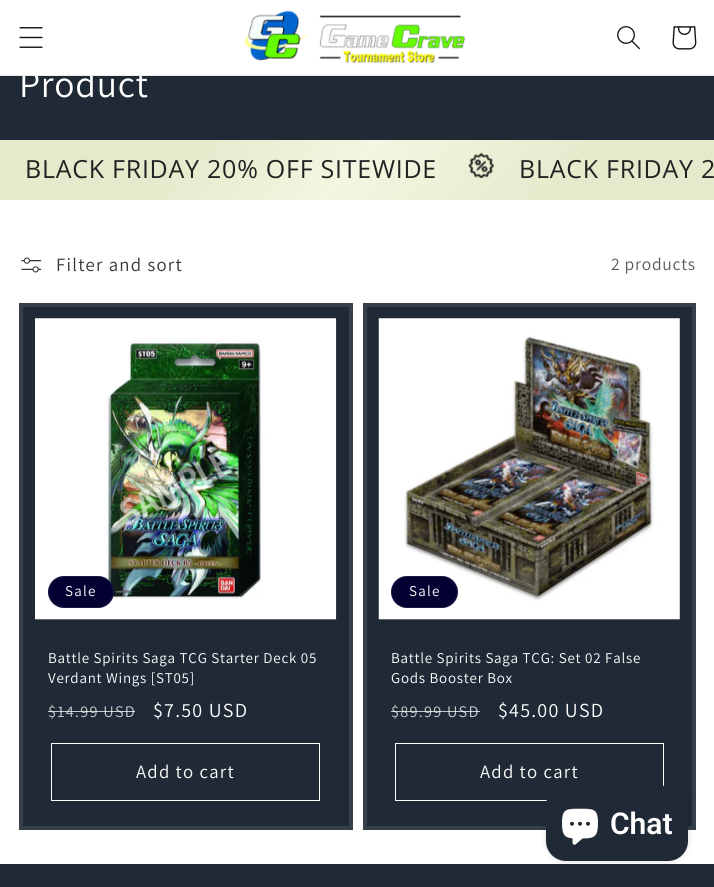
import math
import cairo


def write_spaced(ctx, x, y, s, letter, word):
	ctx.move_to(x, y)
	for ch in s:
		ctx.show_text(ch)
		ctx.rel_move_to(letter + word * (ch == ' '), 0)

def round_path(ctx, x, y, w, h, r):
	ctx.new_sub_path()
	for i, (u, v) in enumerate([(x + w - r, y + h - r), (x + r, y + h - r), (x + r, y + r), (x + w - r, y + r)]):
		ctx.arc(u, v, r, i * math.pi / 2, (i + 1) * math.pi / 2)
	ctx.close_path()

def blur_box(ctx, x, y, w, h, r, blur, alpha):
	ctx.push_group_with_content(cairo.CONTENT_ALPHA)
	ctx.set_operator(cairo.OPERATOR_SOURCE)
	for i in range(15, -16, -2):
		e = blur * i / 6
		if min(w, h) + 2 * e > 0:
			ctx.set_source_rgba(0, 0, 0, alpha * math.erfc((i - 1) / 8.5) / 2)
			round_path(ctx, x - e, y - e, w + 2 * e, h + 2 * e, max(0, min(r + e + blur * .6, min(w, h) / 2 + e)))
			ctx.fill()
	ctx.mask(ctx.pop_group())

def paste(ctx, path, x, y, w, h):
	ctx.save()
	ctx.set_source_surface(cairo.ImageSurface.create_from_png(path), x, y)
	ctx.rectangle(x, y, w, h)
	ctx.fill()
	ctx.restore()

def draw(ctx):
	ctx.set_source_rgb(1, 1, 1)
	ctx.paint()
	ctx.set_source_rgb(0.125, 0.165, 0.212)
	ctx.rectangle(0, 76, 714, 64)
	ctx.fill()
	ctx.select_font_face('Assistant')
	ctx.set_font_size(37.5)
	ctx.set_source_rgb(1, 1, 1)
	write_spaced(ctx, 19, 97, 'Product', 0.75, 0)
	ctx.set_source_rgb(0.925, 0.925, 0.925)
	ctx.rectangle(0, 75, 714, 1)
	ctx.fill()
	paste(ctx, 'media/1.png', 19, 27, 24, 21)
	paste(ctx, 'media/2.png', 244, 10, 222, 53)
	paste(ctx, 'media/3.png', 617, 26, 23, 24)
	paste(ctx, 'media/4.png', 672, 26, 25, 24)
	gradient = cairo.LinearGradient(151, -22, 564, 362)
	gradient.add_color_stop_rgba(0.25, 0.894, 0.918, 0.796, 1)
	gradient.add_color_stop_rgba(0.49, 0.949, 0.969, 0.882, 1)
	gradient.add_color_stop_rgba(0.8, 0.894, 0.918, 0.796, 1)
	ctx.set_source(gradient)
	ctx.rectangle(0, 140, 714, 60)
	ctx.fill()
	ctx.select_font_face('Open Sans')
	ctx.set_font_size(25)
	ctx.set_source_rgb(0.137, 0.137, 0.137)
	write_spaced(ctx, 25, 178, 'BLACK FRIDAY 20% OFF SITEWIDE', 0.75, 0)
	paste(ctx, 'media/5.png', 468, 152, 26, 27)
	write_spaced(ctx, 519, 178, 'BLACK FRIDAY 2', 0.75, 0)
	paste(ctx, 'media/6.png', 21, 257, 21, 16)
	ctx.select_font_face('Assistant')
	ctx.set_font_size(18.75)
	ctx.set_source_rgb(0.212, 0.212, 0.212)
	write_spaced(ctx, 56, 271, 'Filter and sort', 1.25, 0)
	ctx.set_font_size(17.5)
	ctx.set_source_rgb(0.349, 0.349, 0.349)
	write_spaced(ctx, 611, 270, '2 products', 0.75, 0)
	ctx.set_source_rgb(0.125, 0.165, 0.212)
	ctx.rectangle(21, 305, 330, 523)
	ctx.fill_preserve()
	ctx.set_source_rgb(0.212, 0.247, 0.29)
	ctx.set_line_width(4)
	ctx.stroke()
	paste(ctx, 'media/7.png', 35, 318, 302, 302)
	ctx.set_source_rgb(0.016, 0, 0.192)
	round_path(ctx, 48, 576, 66, 32, 16)
	ctx.fill()
	round_path(ctx, 48.5, 576.5, 65, 31, 15.5)
	ctx.set_source_rgba(1, 1, 1, 0.1)
	ctx.set_line_width(1)
	ctx.stroke()
	ctx.set_font_size(15)
	ctx.set_source_rgb(1, 1, 1)
	write_spaced(ctx, 65, 596, 'Sale', 1.25, 0)
	write_spaced(ctx, 48, 663, 'Battle Spirits Saga TCG Starter Deck 05', 0.75, 0)
	write_spaced(ctx, 48, 683, 'Verdant Wings [ST05]', 0.75, 0)
	ctx.set_font_size(16.25)
	ctx.set_source_rgb(0.78, 0.792, 0.804)
	write_spaced(ctx, 48, 717, '$14.99 USD', 1.25, 0)
	ctx.set_source_rgba(1, 1, 1, 0.75)
	ctx.rectangle(48, 711, 87, 1)
	ctx.fill()
	ctx.set_font_size(20)
	ctx.set_source_rgb(1, 1, 1)
	write_spaced(ctx, 153, 717, '$7.50 USD', 1.25, 0)
	ctx.rectangle(51.5, 743.5, 268, 57)
	ctx.stroke()
	ctx.set_font_size(18.75)
	write_spaced(ctx, 136, 778, 'Add to cart', 1.25, 0)
	ctx.set_source_rgb(0.125, 0.165, 0.212)
	ctx.rectangle(365, 305, 329, 523)
	ctx.fill_preserve()
	ctx.set_source_rgb(0.212, 0.247, 0.29)
	ctx.set_line_width(4)
	ctx.stroke()
	paste(ctx, 'media/8.png', 378, 318, 302, 302)
	ctx.set_source_rgb(0.016, 0, 0.192)
	round_path(ctx, 391, 576, 67, 32, 16)
	ctx.fill()
	round_path(ctx, 391.5, 576.5, 66, 31, 15.5)
	ctx.set_source_rgba(1, 1, 1, 0.1)
	ctx.set_line_width(1)
	ctx.stroke()
	ctx.set_font_size(15)
	ctx.set_source_rgb(1, 1, 1)
	write_spaced(ctx, 409, 596, 'Sale', 1.25, 0)
	write_spaced(ctx, 391, 663, 'Battle Spirits Saga TCG: Set 02 False', 0.75, 0)
	write_spaced(ctx, 391, 683, 'Gods Booster Box', 0.75, 0)
	ctx.set_font_size(16.25)
	ctx.set_source_rgb(0.78, 0.792, 0.804)
	write_spaced(ctx, 391, 717, '$89.99 USD', 1.25, 0)
	ctx.set_source_rgba(1, 1, 1, 0.75)
	ctx.rectangle(391, 711, 89, 1)
	ctx.fill()
	ctx.set_font_size(20)
	ctx.set_source_rgb(1, 1, 1)
	write_spaced(ctx, 498, 717, '$45.00 USD', 1.25, 0)
	ctx.rectangle(395.5, 743.5, 268, 57)
	ctx.stroke()
	ctx.set_font_size(18.75)
	write_spaced(ctx, 480, 778, 'Add to cart', 1.25, 0)
	ctx.set_source_rgb(0.125, 0.165, 0.212)
	ctx.rectangle(0, 864, 714, 23)
	ctx.fill()
	ctx.set_source_rgb(0, 0, 0)
	blur_box(ctx, 546, 786, 142, 75, 20, 3, 0.15)
	ctx.set_source_rgb(0.125, 0.165, 0.212)
	round_path(ctx, 546, 786, 142, 75, 20)
	ctx.fill()
	paste(ctx, 'media/9.png', 562, 808, 36, 37)
	ctx.select_font_face('Roboto SemiBold')
	ctx.set_font_size(30)
	ctx.set_source_rgb(1, 1, 1)
	ctx.move_to(610, 834)
	ctx.show_text('Chat')


surface = cairo.ImageSurface(cairo.FORMAT_RGB24, 714, 887)
ctx = cairo.Context(surface)
options = cairo.FontOptions()
options.set_hint_metrics(cairo.HINT_METRICS_OFF)
options.set_hint_style(cairo.HINT_STYLE_NONE)
ctx.set_font_options(options)
ctx.set_miter_limit(4)
draw(ctx)
surface.write_to_png('image.png')
